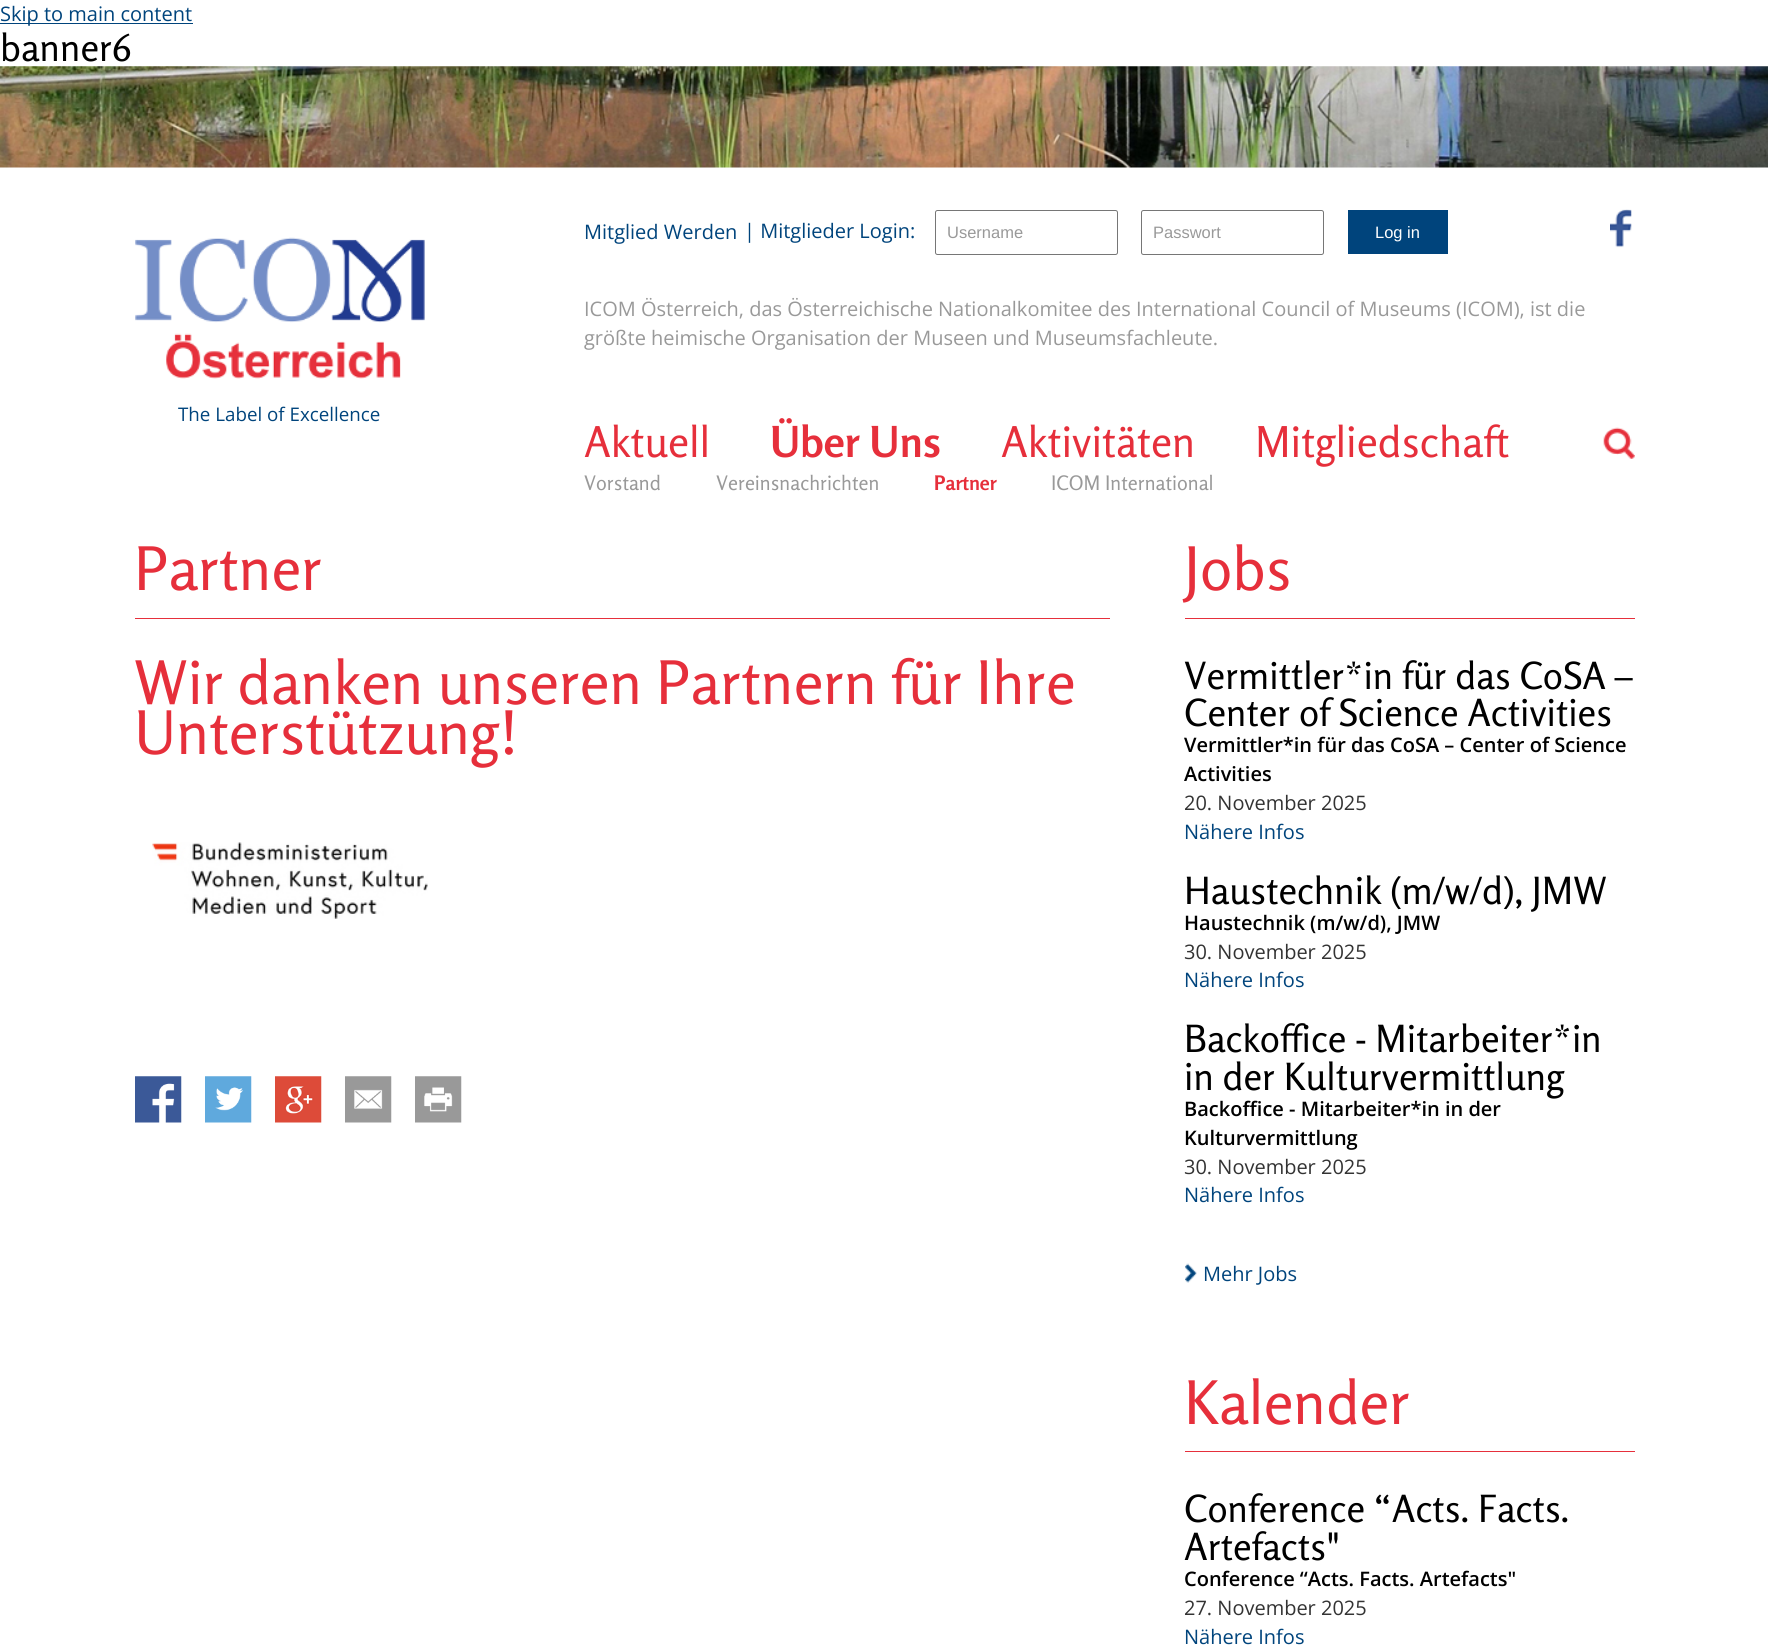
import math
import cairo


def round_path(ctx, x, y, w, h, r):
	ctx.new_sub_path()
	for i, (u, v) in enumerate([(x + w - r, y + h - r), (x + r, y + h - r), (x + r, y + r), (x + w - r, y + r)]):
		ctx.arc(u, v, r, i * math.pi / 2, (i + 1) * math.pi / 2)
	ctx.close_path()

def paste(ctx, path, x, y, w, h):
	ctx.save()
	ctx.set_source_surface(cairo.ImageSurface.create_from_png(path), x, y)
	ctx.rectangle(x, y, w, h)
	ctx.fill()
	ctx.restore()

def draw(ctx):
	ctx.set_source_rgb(1, 1, 1)
	ctx.paint()
	ctx.set_source_rgb(0, 0.267, 0.486)
	ctx.rectangle(0, 23, 193, 1)
	ctx.fill()
	ctx.select_font_face('Open Sans')
	ctx.set_font_size(20)
	ctx.move_to(0, 21)
	ctx.show_text('Skip to main content')
	ctx.select_font_face('Rosario')
	ctx.set_font_size(37.5)
	ctx.set_source_rgb(0, 0, 0)
	ctx.move_to(0, 61)
	ctx.show_text('banner6')
	paste(ctx, 'media/1.png', 0, 66, 1768, 102)
	paste(ctx, 'media/2.png', 135, 237, 290, 142)
	ctx.select_font_face('Open Sans')
	ctx.set_font_size(18.75)
	ctx.set_source_rgb(0, 0.267, 0.486)
	ctx.move_to(178, 421)
	ctx.show_text('The Label of Excellence')
	ctx.set_font_size(20)
	ctx.move_to(584, 239)
	ctx.show_text('Mitglied Werden')
	ctx.move_to(744, 238)
	ctx.show_text('| Mitglieder Login:')
	round_path(ctx, 935.5, 210.5, 182, 44, 2)
	ctx.set_source_rgb(0.463, 0.463, 0.463)
	ctx.set_line_width(1)
	ctx.stroke()
	ctx.select_font_face('Liberation Sans')
	ctx.set_font_size(16.5)
	ctx.set_source_rgb(0.6, 0.6, 0.6)
	ctx.move_to(947, 238)
	ctx.show_text('Username')
	round_path(ctx, 1141.5, 210.5, 182, 44, 2)
	ctx.set_source_rgb(0.463, 0.463, 0.463)
	ctx.stroke()
	ctx.set_source_rgb(0.6, 0.6, 0.6)
	ctx.move_to(1153, 238)
	ctx.show_text('Passwort')
	ctx.set_source_rgb(0, 0.267, 0.486)
	ctx.rectangle(1348, 210, 100, 44)
	ctx.fill()
	ctx.set_source_rgb(1, 1, 1)
	ctx.move_to(1375, 238)
	ctx.show_text('Log in')
	paste(ctx, 'media/3.png', 1610, 209, 22, 39)
	ctx.select_font_face('Open Sans')
	ctx.set_font_size(20)
	ctx.set_source_rgb(0.6, 0.6, 0.6)
	ctx.move_to(584, 316)
	ctx.show_text('ICOM Österreich, das Österreichische Nationalkomitee des International Council of Museums (ICOM), ist die')
	ctx.move_to(584, 345)
	ctx.show_text('größte heimische Organisation der Museen und Museumsfachleute.')
	ctx.select_font_face('Rosario', cairo.FONT_SLANT_NORMAL, cairo.FONT_WEIGHT_BOLD)
	ctx.set_font_size(42.5)
	ctx.set_source_rgb(0.902, 0.184, 0.231)
	ctx.move_to(770, 457)
	ctx.show_text('Über Uns')
	ctx.select_font_face('Rosario')
	ctx.set_font_size(20)
	ctx.set_source_rgb(0.6, 0.6, 0.6)
	ctx.move_to(584, 490)
	ctx.show_text('Vorstand')
	ctx.move_to(716, 490)
	ctx.show_text('Vereinsnachrichten')
	ctx.select_font_face('Rosario', cairo.FONT_SLANT_NORMAL, cairo.FONT_WEIGHT_BOLD)
	ctx.set_source_rgb(0.902, 0.184, 0.231)
	ctx.move_to(934, 490)
	ctx.show_text('Partner')
	ctx.select_font_face('Rosario')
	ctx.set_source_rgb(0.6, 0.6, 0.6)
	ctx.move_to(1051, 490)
	ctx.show_text('ICOM International')
	ctx.set_font_size(42.5)
	ctx.set_source_rgb(0.902, 0.184, 0.231)
	for x, y, s in [
		(584, 457, 'Aktuell'),
		(1001, 457, 'Aktivitäten'),
		(1255, 457, 'Mitgliedschaft'),
	]:
		ctx.move_to(x, y)
		ctx.show_text(s)
	paste(ctx, 'media/4.png', 1603, 427, 32, 32)
	ctx.rectangle(135, 618, 975, 1)
	ctx.fill()
	ctx.set_font_size(60)
	for x, y, s in [
		(134, 590, 'Partner'),
		(134, 704, 'Wir danken unseren Partnern für Ihre'),
		(134, 754, 'Unterstützung!'),
	]:
		ctx.move_to(x, y)
		ctx.show_text(s)
	paste(ctx, 'media/5.png', 152, 842, 276, 77)
	paste(ctx, 'media/6.png', 135, 1076, 47, 47)
	paste(ctx, 'media/7.png', 205, 1076, 47, 47)
	paste(ctx, 'media/8.png', 275, 1076, 47, 47)
	paste(ctx, 'media/9.png', 345, 1076, 47, 47)
	paste(ctx, 'media/10.png', 415, 1076, 47, 47)
	ctx.rectangle(1185, 618, 450, 1)
	ctx.fill()
	ctx.move_to(1184, 590)
	ctx.show_text('Jobs')
	ctx.set_font_size(37.5)
	ctx.set_source_rgb(0, 0, 0)
	ctx.move_to(1184, 689)
	ctx.show_text('Vermittler*in für das CoSA –')
	ctx.move_to(1184, 726)
	ctx.show_text('Center of Science Activities')
	ctx.select_font_face('Open Sans SemiBold')
	ctx.set_font_size(20)
	ctx.move_to(1184, 752)
	ctx.show_text('Vermittler*in für das CoSA – Center of Science')
	ctx.move_to(1184, 781)
	ctx.show_text('Activities')
	ctx.select_font_face('Open Sans')
	ctx.set_source_rgb(0.2, 0.2, 0.2)
	ctx.move_to(1184, 810)
	ctx.show_text('20. November 2025')
	ctx.set_source_rgb(0, 0.267, 0.486)
	ctx.move_to(1184, 839)
	ctx.show_text('Nähere Infos')
	ctx.select_font_face('Rosario')
	ctx.set_font_size(37.5)
	ctx.set_source_rgb(0, 0, 0)
	ctx.move_to(1184, 904)
	ctx.show_text('Haustechnik (m/w/d), JMW')
	ctx.select_font_face('Open Sans SemiBold')
	ctx.set_font_size(20)
	ctx.move_to(1184, 930)
	ctx.show_text('Haustechnik (m/w/d), JMW')
	ctx.select_font_face('Open Sans')
	ctx.set_source_rgb(0.2, 0.2, 0.2)
	ctx.move_to(1184, 959)
	ctx.show_text('30. November 2025')
	ctx.set_source_rgb(0, 0.267, 0.486)
	ctx.move_to(1184, 987)
	ctx.show_text('Nähere Infos')
	ctx.select_font_face('Rosario')
	ctx.set_font_size(37.5)
	ctx.set_source_rgb(0, 0, 0)
	ctx.move_to(1184, 1052)
	ctx.show_text('Backoffice - Mitarbeiter*in')
	ctx.move_to(1184, 1090)
	ctx.show_text('in der Kulturvermittlung')
	ctx.select_font_face('Open Sans SemiBold')
	ctx.set_font_size(20)
	ctx.move_to(1184, 1116)
	ctx.show_text('Backoffice - Mitarbeiter*in in der')
	ctx.move_to(1184, 1145)
	ctx.show_text('Kulturvermittlung')
	ctx.select_font_face('Open Sans')
	ctx.set_source_rgb(0.2, 0.2, 0.2)
	ctx.move_to(1184, 1174)
	ctx.show_text('30. November 2025')
	ctx.set_source_rgb(0, 0.267, 0.486)
	ctx.move_to(1184, 1202)
	ctx.show_text('Nähere Infos')
	paste(ctx, 'media/11.png', 1185, 1263, 12, 20)
	ctx.move_to(1203, 1281)
	ctx.show_text('Mehr Jobs')
	ctx.set_source_rgb(0.902, 0.184, 0.231)
	ctx.rectangle(1185, 1451, 450, 1)
	ctx.fill()
	ctx.select_font_face('Rosario')
	ctx.set_font_size(60)
	ctx.move_to(1184, 1424)
	ctx.show_text('Kalender')
	ctx.set_font_size(37.5)
	ctx.set_source_rgb(0, 0, 0)
	ctx.move_to(1184, 1522)
	ctx.show_text('Conference “Acts. Facts.')
	ctx.move_to(1184, 1560)
	ctx.show_text('Artefacts"')
	ctx.select_font_face('Open Sans SemiBold')
	ctx.set_font_size(20)
	ctx.move_to(1184, 1586)
	ctx.show_text('Conference “Acts. Facts. Artefacts"')
	ctx.select_font_face('Open Sans')
	ctx.set_source_rgb(0.2, 0.2, 0.2)
	ctx.move_to(1184, 1615)
	ctx.show_text('27. November 2025')
	ctx.set_source_rgb(0, 0.267, 0.486)
	ctx.move_to(1184, 1644)
	ctx.show_text('Nähere Infos')


surface = cairo.ImageSurface(cairo.FORMAT_RGB24, 1768, 1646)
ctx = cairo.Context(surface)
options = cairo.FontOptions()
options.set_hint_metrics(cairo.HINT_METRICS_OFF)
options.set_hint_style(cairo.HINT_STYLE_NONE)
ctx.set_font_options(options)
ctx.set_miter_limit(4)
draw(ctx)
surface.write_to_png('image.png')
